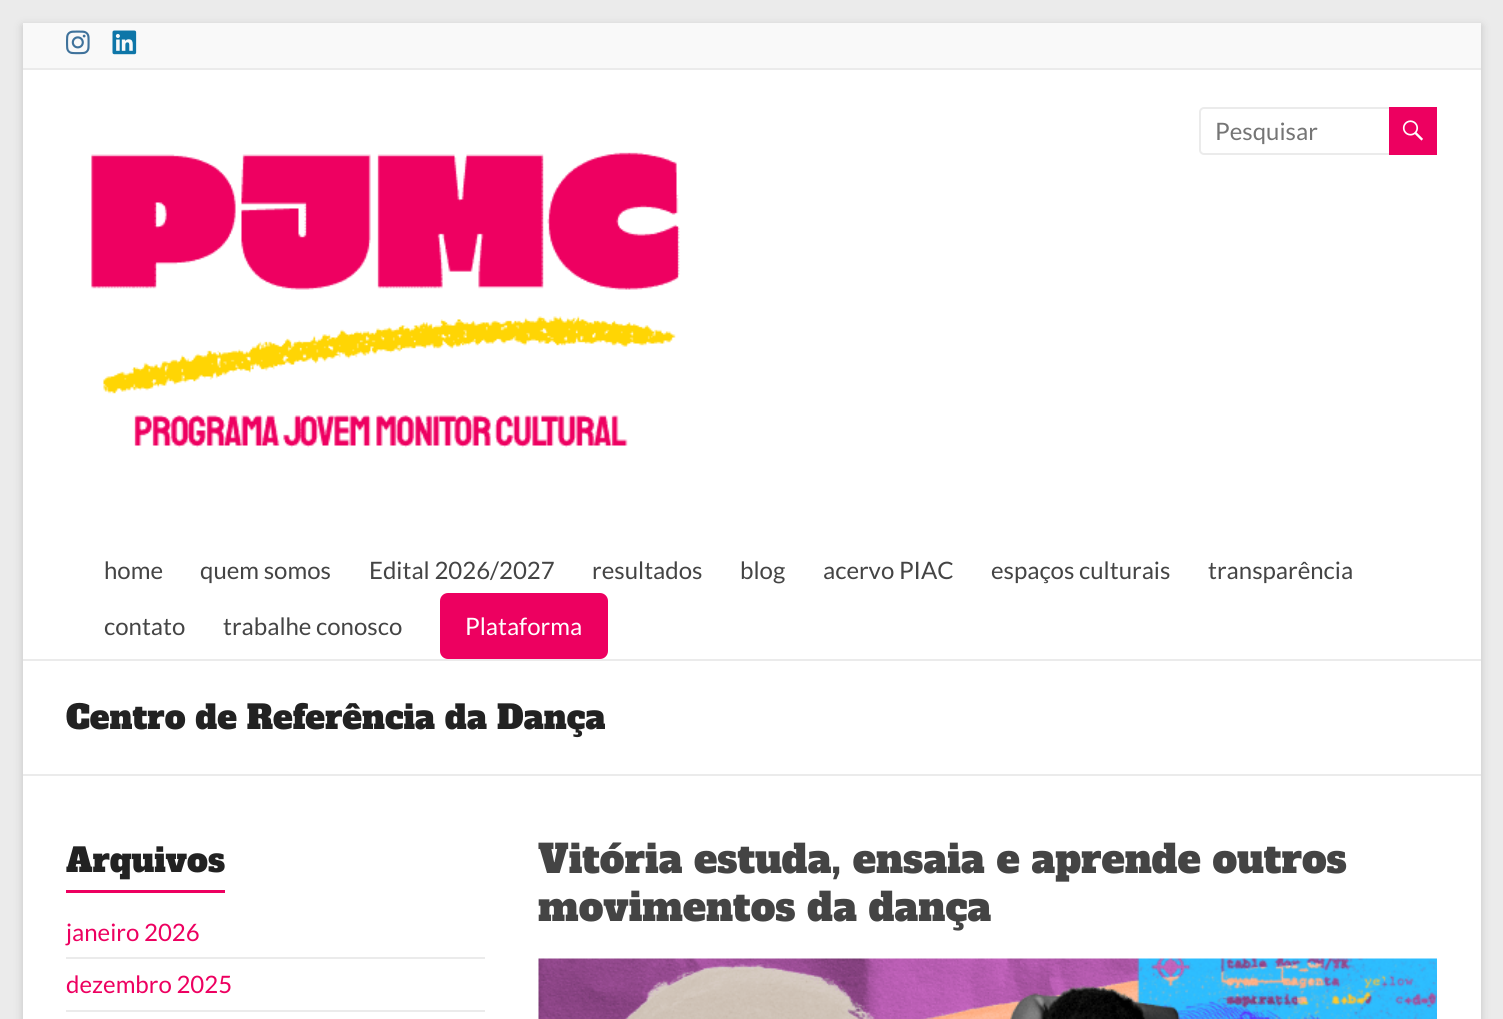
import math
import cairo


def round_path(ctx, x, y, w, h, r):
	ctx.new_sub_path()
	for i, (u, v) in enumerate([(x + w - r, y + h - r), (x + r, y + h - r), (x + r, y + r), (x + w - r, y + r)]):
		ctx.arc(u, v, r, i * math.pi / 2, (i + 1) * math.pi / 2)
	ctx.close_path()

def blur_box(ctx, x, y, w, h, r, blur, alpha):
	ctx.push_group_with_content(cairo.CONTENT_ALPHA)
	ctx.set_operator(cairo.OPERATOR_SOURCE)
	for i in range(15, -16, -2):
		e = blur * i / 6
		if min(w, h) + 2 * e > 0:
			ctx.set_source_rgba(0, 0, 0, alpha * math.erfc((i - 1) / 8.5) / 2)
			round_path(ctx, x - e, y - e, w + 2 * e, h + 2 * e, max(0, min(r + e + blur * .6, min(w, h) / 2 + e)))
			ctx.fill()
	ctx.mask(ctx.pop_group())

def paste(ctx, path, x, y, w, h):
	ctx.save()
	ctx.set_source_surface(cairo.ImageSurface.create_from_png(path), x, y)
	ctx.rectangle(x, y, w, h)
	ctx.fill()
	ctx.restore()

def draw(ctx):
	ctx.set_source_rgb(0.918, 0.918, 0.918)
	ctx.paint()
	ctx.set_source_rgb(0.392, 0.392, 0.392)
	blur_box(ctx, 23, 26, 1458, 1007, 0, 4.5, 0.3)
	ctx.set_source_rgb(1, 1, 1)
	ctx.rectangle(23, 70, 1458, 949)
	ctx.fill()
	ctx.set_source_rgb(0.973, 0.973, 0.973)
	ctx.rectangle(23, 23, 1458, 45)
	ctx.fill()
	ctx.set_source_rgb(0.918, 0.918, 0.918)
	ctx.rectangle(23, 68, 1458, 2)
	ctx.fill()
	paste(ctx, 'media/1.png', 66, 30, 24, 25)
	paste(ctx, 'media/2.png', 112, 30, 25, 25)
	ctx.rectangle(23, 659, 1458, 2)
	ctx.fill()
	round_path(ctx, 1200, 108, 193, 46, 4)
	ctx.stroke()
	ctx.select_font_face('Lato')
	ctx.set_font_size(24)
	ctx.set_source_rgb(0.459, 0.459, 0.459)
	ctx.move_to(1215, 140)
	ctx.show_text('Pesquisar')
	ctx.set_source_rgb(0.929, 0, 0.376)
	ctx.rectangle(1389, 107, 48, 48)
	ctx.fill()
	paste(ctx, 'media/3.png', 1402, 120, 21, 21)
	paste(ctx, 'media/4.png', 91, 152, 589, 296)
	ctx.set_source_rgb(0.267, 0.267, 0.267)
	for x, y, s in [
		(104, 579, 'home'),
		(200, 579, 'quem somos'),
		(369, 579, 'Edital 2026/2027'),
		(592, 579, 'resultados'),
		(740, 579, 'blog'),
		(823, 579, 'acervo PIAC'),
		(991, 579, 'espaços culturais'),
		(1208, 579, 'transparência'),
		(104, 635, 'contato'),
		(223, 635, 'trabalhe conosco'),
	]:
		ctx.move_to(x, y)
		ctx.show_text(s)
	ctx.set_source_rgb(0.929, 0, 0.376)
	round_path(ctx, 441.5, 594.5, 165, 63, 6.5)
	ctx.fill_preserve()
	ctx.set_line_width(3)
	ctx.stroke()
	ctx.set_source_rgb(1, 1, 1)
	ctx.move_to(465, 635)
	ctx.show_text('Plataforma')
	ctx.set_source_rgb(0.918, 0.918, 0.918)
	ctx.rectangle(23, 774, 1458, 2)
	ctx.fill()
	ctx.select_font_face('Alfa Slab One')
	ctx.set_font_size(33)
	ctx.set_source_rgb(0.133, 0.133, 0.133)
	ctx.move_to(66, 729)
	ctx.show_text('Centro de Referência da Dança')
	ctx.move_to(66, 872)
	ctx.show_text('Arquivos')
	ctx.set_source_rgb(0.929, 0, 0.376)
	ctx.rectangle(66, 890, 159, 3)
	ctx.fill()
	ctx.set_source_rgb(0.918, 0.918, 0.918)
	ctx.rectangle(66, 957, 419, 2)
	ctx.fill()
	ctx.select_font_face('Lato')
	ctx.set_font_size(24)
	ctx.set_source_rgb(0.929, 0, 0.376)
	ctx.move_to(66, 941)
	ctx.show_text('janeiro 2026')
	ctx.set_source_rgb(0.918, 0.918, 0.918)
	ctx.rectangle(66, 1010, 419, 2)
	ctx.fill()
	ctx.set_source_rgb(0.929, 0, 0.376)
	ctx.move_to(66, 993)
	ctx.show_text('dezembro 2025')
	ctx.select_font_face('Alfa Slab One')
	ctx.set_font_size(39)
	ctx.set_source_rgb(0.267, 0.267, 0.267)
	ctx.move_to(538, 873)
	ctx.show_text('Vitória estuda, ensaia e aprende outros')
	ctx.move_to(538, 921)
	ctx.show_text('movimentos da dança')
	paste(ctx, 'media/5.png', 538, 958, 899, 61)


surface = cairo.ImageSurface(cairo.FORMAT_RGB24, 1503, 1019)
ctx = cairo.Context(surface)
options = cairo.FontOptions()
options.set_hint_metrics(cairo.HINT_METRICS_OFF)
options.set_hint_style(cairo.HINT_STYLE_NONE)
ctx.set_font_options(options)
ctx.set_miter_limit(4)
draw(ctx)
surface.write_to_png('image.png')
